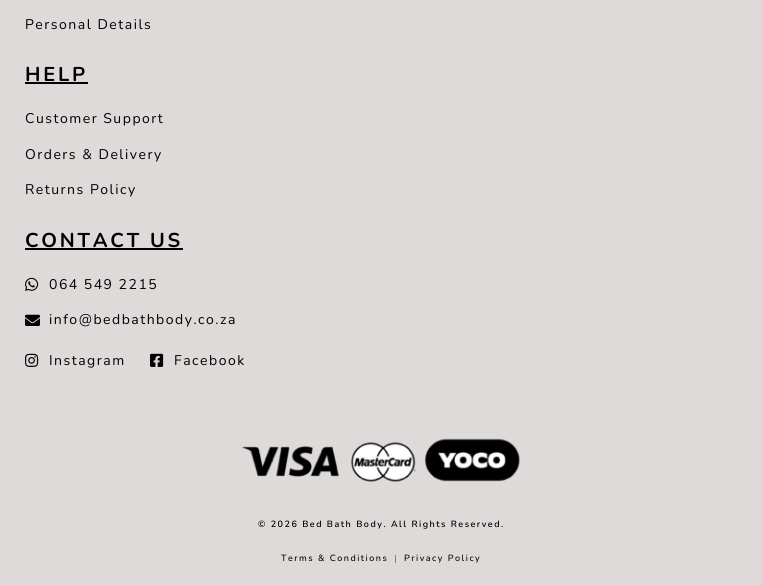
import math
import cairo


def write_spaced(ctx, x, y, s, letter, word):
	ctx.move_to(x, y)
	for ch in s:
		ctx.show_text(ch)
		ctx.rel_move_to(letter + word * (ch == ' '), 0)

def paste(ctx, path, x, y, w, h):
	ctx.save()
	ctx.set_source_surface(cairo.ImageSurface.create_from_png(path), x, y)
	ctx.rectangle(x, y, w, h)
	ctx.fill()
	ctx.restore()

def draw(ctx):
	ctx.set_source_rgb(0.867, 0.855, 0.851)
	ctx.paint()
	ctx.select_font_face('Nunito ExtraLight')
	ctx.set_font_size(14)
	ctx.set_source_rgb(0, 0, 0)
	write_spaced(ctx, 25, 29, 'Personal Details', 1.5, 0)
	ctx.select_font_face('Nunito', cairo.FONT_SLANT_NORMAL, cairo.FONT_WEIGHT_BOLD)
	ctx.set_font_size(20)
	write_spaced(ctx, 25, 81, 'HELP', 2.75, 0)
	ctx.rectangle(25, 82, 63, 2)
	ctx.fill()
	ctx.select_font_face('Nunito ExtraLight')
	ctx.set_font_size(14)
	for x, y, s in [
		(25, 123, 'Customer Support'),
		(25, 159, 'Orders & Delivery'),
		(25, 194, 'Returns Policy'),
	]:
		write_spaced(ctx, x, y, s, 1.5, 0)
	ctx.select_font_face('Nunito', cairo.FONT_SLANT_NORMAL, cairo.FONT_WEIGHT_BOLD)
	ctx.set_font_size(20)
	write_spaced(ctx, 25, 247, 'CONTACT US', 2.75, 0)
	ctx.rectangle(25, 248, 158, 2)
	ctx.fill()
	paste(ctx, 'media/1.png', 25, 277, 14, 14)
	ctx.select_font_face('Nunito ExtraLight')
	ctx.set_font_size(14)
	write_spaced(ctx, 49, 289, '064 549 2215', 1.5, 0)
	paste(ctx, 'media/2.png', 25, 314, 15, 12)
	write_spaced(ctx, 49, 324, 'info@bedbathbody.co.za', 1.5, 0)
	paste(ctx, 'media/3.png', 25, 353, 14, 14)
	write_spaced(ctx, 49, 365, 'Instagram', 1.5, 0)
	paste(ctx, 'media/4.png', 150, 353, 14, 14)
	write_spaced(ctx, 174, 365, 'Facebook', 1.5, 0)
	paste(ctx, 'media/5.png', 242, 438, 279, 44)
	ctx.select_font_face('Nunito SemiBold')
	ctx.set_font_size(9)
	write_spaced(ctx, 258, 527, '© 2026 Bed Bath Body. All Rights Reserved.', 1.5, 0)
	ctx.select_font_face('Nunito Medium')
	write_spaced(ctx, 281, 561, 'Terms & Conditions', 1.5, 0)
	ctx.set_source_rgb(0.529, 0.498, 0.478)
	ctx.rectangle(395, 555, 1, 8)
	ctx.fill()
	ctx.set_source_rgb(0, 0, 0)
	write_spaced(ctx, 404, 561, 'Privacy Policy', 1.5, 0)


surface = cairo.ImageSurface(cairo.FORMAT_RGB24, 762, 585)
ctx = cairo.Context(surface)
options = cairo.FontOptions()
options.set_hint_metrics(cairo.HINT_METRICS_OFF)
options.set_hint_style(cairo.HINT_STYLE_NONE)
ctx.set_font_options(options)
ctx.set_miter_limit(4)
draw(ctx)
surface.write_to_png('image.png')
